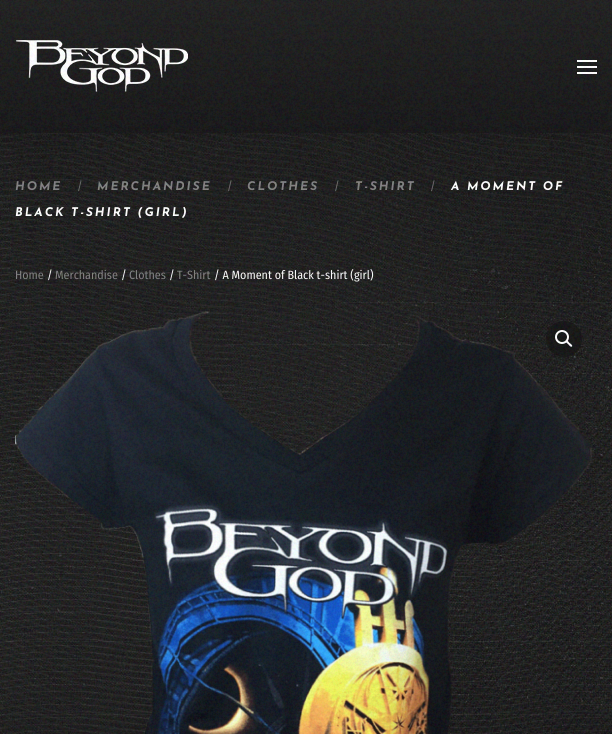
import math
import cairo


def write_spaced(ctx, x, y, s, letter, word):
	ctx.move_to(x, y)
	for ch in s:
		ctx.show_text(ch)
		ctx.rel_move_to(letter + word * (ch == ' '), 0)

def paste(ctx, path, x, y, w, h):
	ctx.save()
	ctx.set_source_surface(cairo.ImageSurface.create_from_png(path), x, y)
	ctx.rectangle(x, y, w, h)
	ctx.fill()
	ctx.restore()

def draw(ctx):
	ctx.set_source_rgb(1, 1, 1)
	ctx.paint()
	gradient = cairo.LinearGradient(306, 0, 306, 133)
	gradient.add_color_stop_rgba(0.01, 0.106, 0.106, 0.106, 1)
	gradient.add_color_stop_rgba(1, 0.071, 0.071, 0.075, 1)
	ctx.set_source(gradient)
	ctx.rectangle(0, 0, 612, 133)
	ctx.fill()
	paste(ctx, 'media/2.png', 16, 40, 172, 52)
	ctx.set_source_rgb(1, 1, 1)
	ctx.rectangle(577, 60, 20, 2)
	ctx.rectangle(577, 66, 20, 2)
	ctx.rectangle(577, 72, 20, 2)
	ctx.fill()
	paste(ctx, 'media/3.png', 0, 133, 612, 601)
	ctx.select_font_face('Josefin Sans Thin', cairo.FONT_SLANT_ITALIC)
	ctx.set_font_size(12)
	ctx.set_source_rgb(0.502, 0.502, 0.502)
	write_spaced(ctx, 15, 190, 'HOME', 2, 0)
	ctx.select_font_face('Fira Sans Condensed')
	ctx.set_source_rgb(0.412, 0.412, 0.412)
	ctx.move_to(430, 190)
	ctx.show_text('/')
	ctx.select_font_face('Josefin Sans Thin', cairo.FONT_SLANT_ITALIC)
	ctx.set_source_rgb(1, 1, 1)
	write_spaced(ctx, 451, 190, 'A MOMENT OF', 2, 0)
	write_spaced(ctx, 15, 216, 'BLACK T-SHIRT (GIRL)', 2, 0)
	ctx.select_font_face('Fira Sans Condensed')
	ctx.set_source_rgb(0.412, 0.412, 0.412)
	ctx.move_to(77, 190)
	ctx.show_text('/')
	ctx.select_font_face('Josefin Sans Thin', cairo.FONT_SLANT_ITALIC)
	ctx.set_source_rgb(0.502, 0.502, 0.502)
	write_spaced(ctx, 97, 190, 'MERCHANDISE', 2, 0)
	ctx.select_font_face('Fira Sans Condensed')
	ctx.set_source_rgb(0.412, 0.412, 0.412)
	ctx.move_to(227, 190)
	ctx.show_text('/')
	ctx.select_font_face('Josefin Sans Thin', cairo.FONT_SLANT_ITALIC)
	ctx.set_source_rgb(0.502, 0.502, 0.502)
	write_spaced(ctx, 247, 190, 'CLOTHES', 2, 0)
	ctx.select_font_face('Fira Sans Condensed')
	ctx.set_source_rgb(0.412, 0.412, 0.412)
	ctx.move_to(334, 190)
	ctx.show_text('/')
	ctx.select_font_face('Josefin Sans Thin', cairo.FONT_SLANT_ITALIC)
	ctx.set_source_rgb(0.502, 0.502, 0.502)
	write_spaced(ctx, 355, 190, 'T-SHIRT', 2, 0)
	ctx.select_font_face('Fira Sans Condensed')
	ctx.move_to(15, 279)
	ctx.show_text('Home')
	ctx.set_source_rgb(1, 1, 1)
	ctx.move_to(47, 279)
	ctx.show_text('/')
	ctx.set_source_rgb(0.502, 0.502, 0.502)
	ctx.move_to(55, 279)
	ctx.show_text('Merchandise')
	ctx.set_source_rgb(1, 1, 1)
	ctx.move_to(121, 279)
	ctx.show_text('/')
	ctx.set_source_rgb(0.502, 0.502, 0.502)
	ctx.move_to(129, 279)
	ctx.show_text('Clothes')
	ctx.set_source_rgb(1, 1, 1)
	ctx.move_to(169, 279)
	ctx.show_text('/')
	ctx.set_source_rgb(0.502, 0.502, 0.502)
	ctx.move_to(177, 279)
	ctx.show_text('T-Shirt')
	ctx.set_source_rgb(1, 1, 1)
	ctx.move_to(214, 279)
	ctx.show_text('/ A Moment of Black t-shirt (girl)')
	paste(ctx, 'media/4.png', 15, 311, 578, 423)
	ctx.set_source_rgb(0.067, 0.067, 0.067)
	ctx.arc(564, 339, 18, 0, 2 * math.pi)
	ctx.fill()
	ctx.arc(562, 337, 6, 0, 2 * math.pi)
	ctx.set_source_rgb(1, 1, 1)
	ctx.stroke()
	ctx.new_path()
	ctx.move_to(566, 341)
	ctx.curve_to(567.5, 339.5, 569, 342.5, 569.5, 343)
	ctx.curve_to(570.5, 343.5, 573, 345.5, 572, 346.5)
	ctx.curve_to(570.5, 347.5, 569, 345, 568.5, 344.5)
	ctx.curve_to(567.5, 343.5, 565, 342, 566, 341)
	ctx.close_path()
	ctx.fill()
	paste(ctx, 'media/1.png', 0, 0, 612, 734)


surface = cairo.ImageSurface(cairo.FORMAT_RGB24, 612, 734)
ctx = cairo.Context(surface)
options = cairo.FontOptions()
options.set_hint_metrics(cairo.HINT_METRICS_OFF)
options.set_hint_style(cairo.HINT_STYLE_NONE)
ctx.set_font_options(options)
ctx.set_miter_limit(4)
draw(ctx)
surface.write_to_png('image.png')
